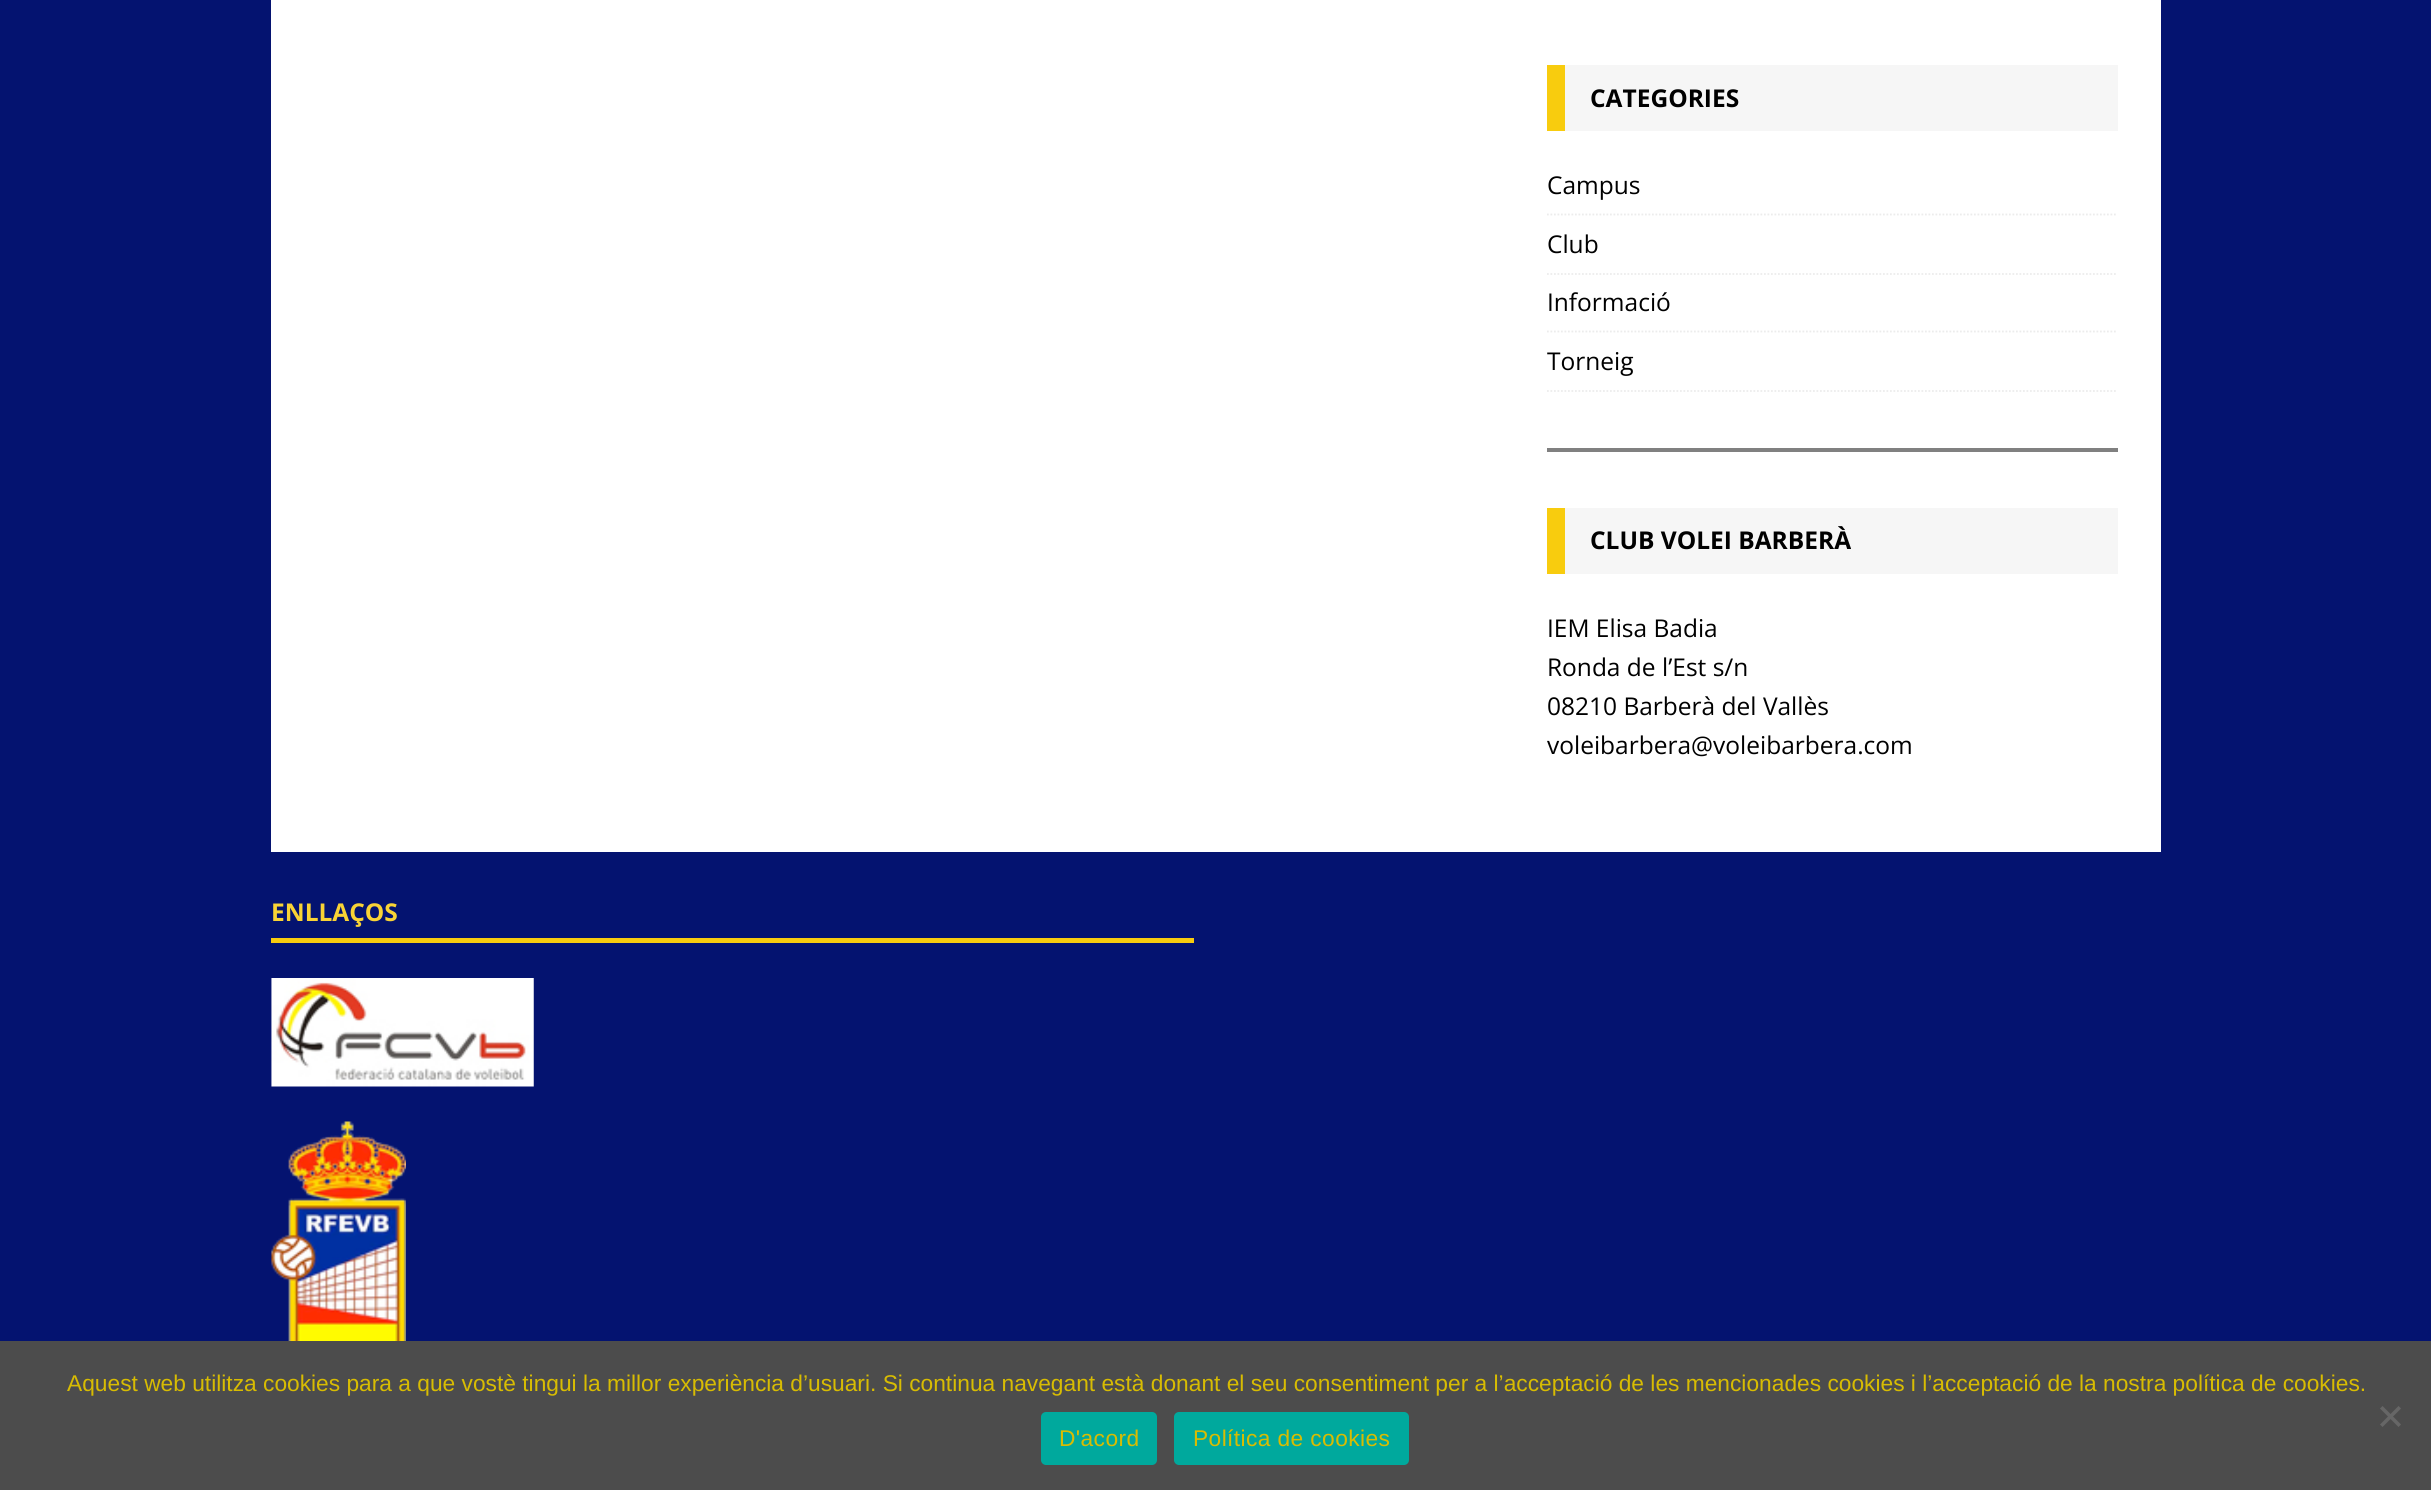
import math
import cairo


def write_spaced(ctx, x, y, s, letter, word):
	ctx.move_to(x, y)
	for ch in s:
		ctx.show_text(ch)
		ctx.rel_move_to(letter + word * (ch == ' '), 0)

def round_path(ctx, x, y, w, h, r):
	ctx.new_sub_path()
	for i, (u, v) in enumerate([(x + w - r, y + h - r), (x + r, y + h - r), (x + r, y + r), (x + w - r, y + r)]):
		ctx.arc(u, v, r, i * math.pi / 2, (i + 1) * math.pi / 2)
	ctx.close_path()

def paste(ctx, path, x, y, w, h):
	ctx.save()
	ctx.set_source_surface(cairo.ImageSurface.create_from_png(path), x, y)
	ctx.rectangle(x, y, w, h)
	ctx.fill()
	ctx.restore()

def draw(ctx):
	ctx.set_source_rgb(0.016, 0.075, 0.439)
	ctx.paint()
	ctx.set_source_rgb(1, 1, 1)
	ctx.rectangle(271, 0, 1890, 852)
	ctx.fill()
	ctx.set_source_rgb(0.961, 0.961, 0.961)
	ctx.rectangle(1565, 65, 553, 66)
	ctx.fill()
	ctx.set_source_rgb(0.969, 0.8, 0.055)
	ctx.rectangle(1547, 65, 18, 66)
	ctx.fill()
	ctx.select_font_face('Open Sans', cairo.FONT_SLANT_NORMAL, cairo.FONT_WEIGHT_BOLD)
	ctx.set_font_size(24.5)
	ctx.set_source_rgb(0, 0, 0)
	ctx.move_to(1590, 107)
	ctx.show_text('CATEGORIES')
	ctx.new_path()
	ctx.move_to(1547, 214.5)
	ctx.line_to(2117.5, 214.5)
	ctx.set_source_rgb(0.922, 0.922, 0.922)
	ctx.set_line_width(1.8)
	ctx.set_dash([1.75, 1.75])
	ctx.stroke()
	ctx.select_font_face('Open Sans')
	ctx.set_source_rgb(0, 0, 0)
	ctx.move_to(1547, 194)
	ctx.show_text('Campus')
	ctx.new_path()
	ctx.move_to(1547, 274)
	ctx.line_to(2117.5, 274)
	ctx.set_source_rgb(0.922, 0.922, 0.922)
	ctx.stroke()
	ctx.set_source_rgb(0, 0, 0)
	ctx.move_to(1547, 253)
	ctx.show_text('Club')
	ctx.new_path()
	ctx.move_to(1547, 331.5)
	ctx.line_to(2117.5, 331.5)
	ctx.set_source_rgb(0.922, 0.922, 0.922)
	ctx.stroke()
	ctx.set_source_rgb(0, 0, 0)
	ctx.move_to(1547, 311)
	ctx.show_text('Informació')
	ctx.new_path()
	ctx.move_to(1547, 391)
	ctx.line_to(2117.5, 391)
	ctx.set_source_rgb(0.922, 0.922, 0.922)
	ctx.stroke()
	ctx.set_source_rgb(0, 0, 0)
	ctx.move_to(1547, 370)
	ctx.show_text('Torneig')
	ctx.set_source_rgb(0.502, 0.502, 0.502)
	ctx.rectangle(1547, 448, 571, 4)
	ctx.fill()
	ctx.set_source_rgb(0.961, 0.961, 0.961)
	ctx.rectangle(1565, 508, 553, 66)
	ctx.fill()
	ctx.set_source_rgb(0.969, 0.8, 0.055)
	ctx.rectangle(1547, 508, 18, 66)
	ctx.fill()
	ctx.select_font_face('Open Sans', cairo.FONT_SLANT_NORMAL, cairo.FONT_WEIGHT_BOLD)
	ctx.set_source_rgb(0, 0, 0)
	ctx.move_to(1590, 549)
	ctx.show_text('CLUB VOLEI BARBERÀ')
	ctx.select_font_face('Open Sans')
	for x, y, s in [
		(1547, 637, 'IEM Elisa Badia'),
		(1547, 676, 'Ronda de l’Est s/n'),
		(1547, 715, '08210 Barberà del Vallès'),
		(1547, 754, 'voleibarbera@voleibarbera.com'),
	]:
		ctx.move_to(x, y)
		ctx.show_text(s)
	ctx.set_source_rgb(0.969, 0.8, 0.055)
	ctx.rectangle(271, 938, 923, 5)
	ctx.fill()
	ctx.select_font_face('Open Sans', cairo.FONT_SLANT_NORMAL, cairo.FONT_WEIGHT_BOLD)
	ctx.set_source_rgb(0.973, 0.827, 0.208)
	ctx.move_to(271, 921)
	ctx.show_text('ENLLAÇOS')
	paste(ctx, 'media/1.png', 271, 978, 263, 109)
	paste(ctx, 'media/2.png', 271, 1121, 135, 220)
	ctx.set_source_rgb(0.298, 0.298, 0.298)
	ctx.rectangle(0, 1341, 2431, 149)
	ctx.fill()
	ctx.select_font_face('Liberation Sans')
	ctx.set_font_size(22.75)
	ctx.set_source_rgb(0.847, 0.737, 0.008)
	ctx.move_to(67, 1391)
	ctx.show_text('Aquest web utilitza cookies para a que vostè tingui la millor experiència d’usuari. Si continua navegant està donant el seu consentiment per a l’acceptació de les mencionades cookies i l’acceptació de la nostra política de cookies.')
	ctx.set_source_rgb(0.4, 0.4, 0.4)
	ctx.new_path()
	ctx.move_to(2398.5, 1406)
	ctx.line_to(2401, 1408.5)
	ctx.line_to(2382.5, 1427)
	ctx.line_to(2380, 1424.5)
	ctx.close_path()
	ctx.fill()
	ctx.new_path()
	ctx.move_to(2380, 1408.5)
	ctx.line_to(2382.5, 1406)
	ctx.line_to(2401, 1424.5)
	ctx.line_to(2398.5, 1427)
	ctx.close_path()
	ctx.fill()
	ctx.set_source_rgb(0, 0.663, 0.616)
	round_path(ctx, 1041, 1412, 116, 53, 5)
	ctx.fill()
	ctx.set_source_rgb(0.847, 0.737, 0.008)
	write_spaced(ctx, 1059, 1446, 'D\'acord', 0.4, 0)
	ctx.set_source_rgb(0, 0.663, 0.616)
	round_path(ctx, 1174, 1412, 235, 53, 5)
	ctx.fill()
	ctx.set_source_rgb(0.847, 0.737, 0.008)
	write_spaced(ctx, 1193, 1446, 'Política de cookies', 0.4, 0)


surface = cairo.ImageSurface(cairo.FORMAT_RGB24, 2431, 1490)
ctx = cairo.Context(surface)
options = cairo.FontOptions()
options.set_hint_metrics(cairo.HINT_METRICS_OFF)
options.set_hint_style(cairo.HINT_STYLE_NONE)
ctx.set_font_options(options)
ctx.set_miter_limit(4)
draw(ctx)
surface.write_to_png('image.png')
